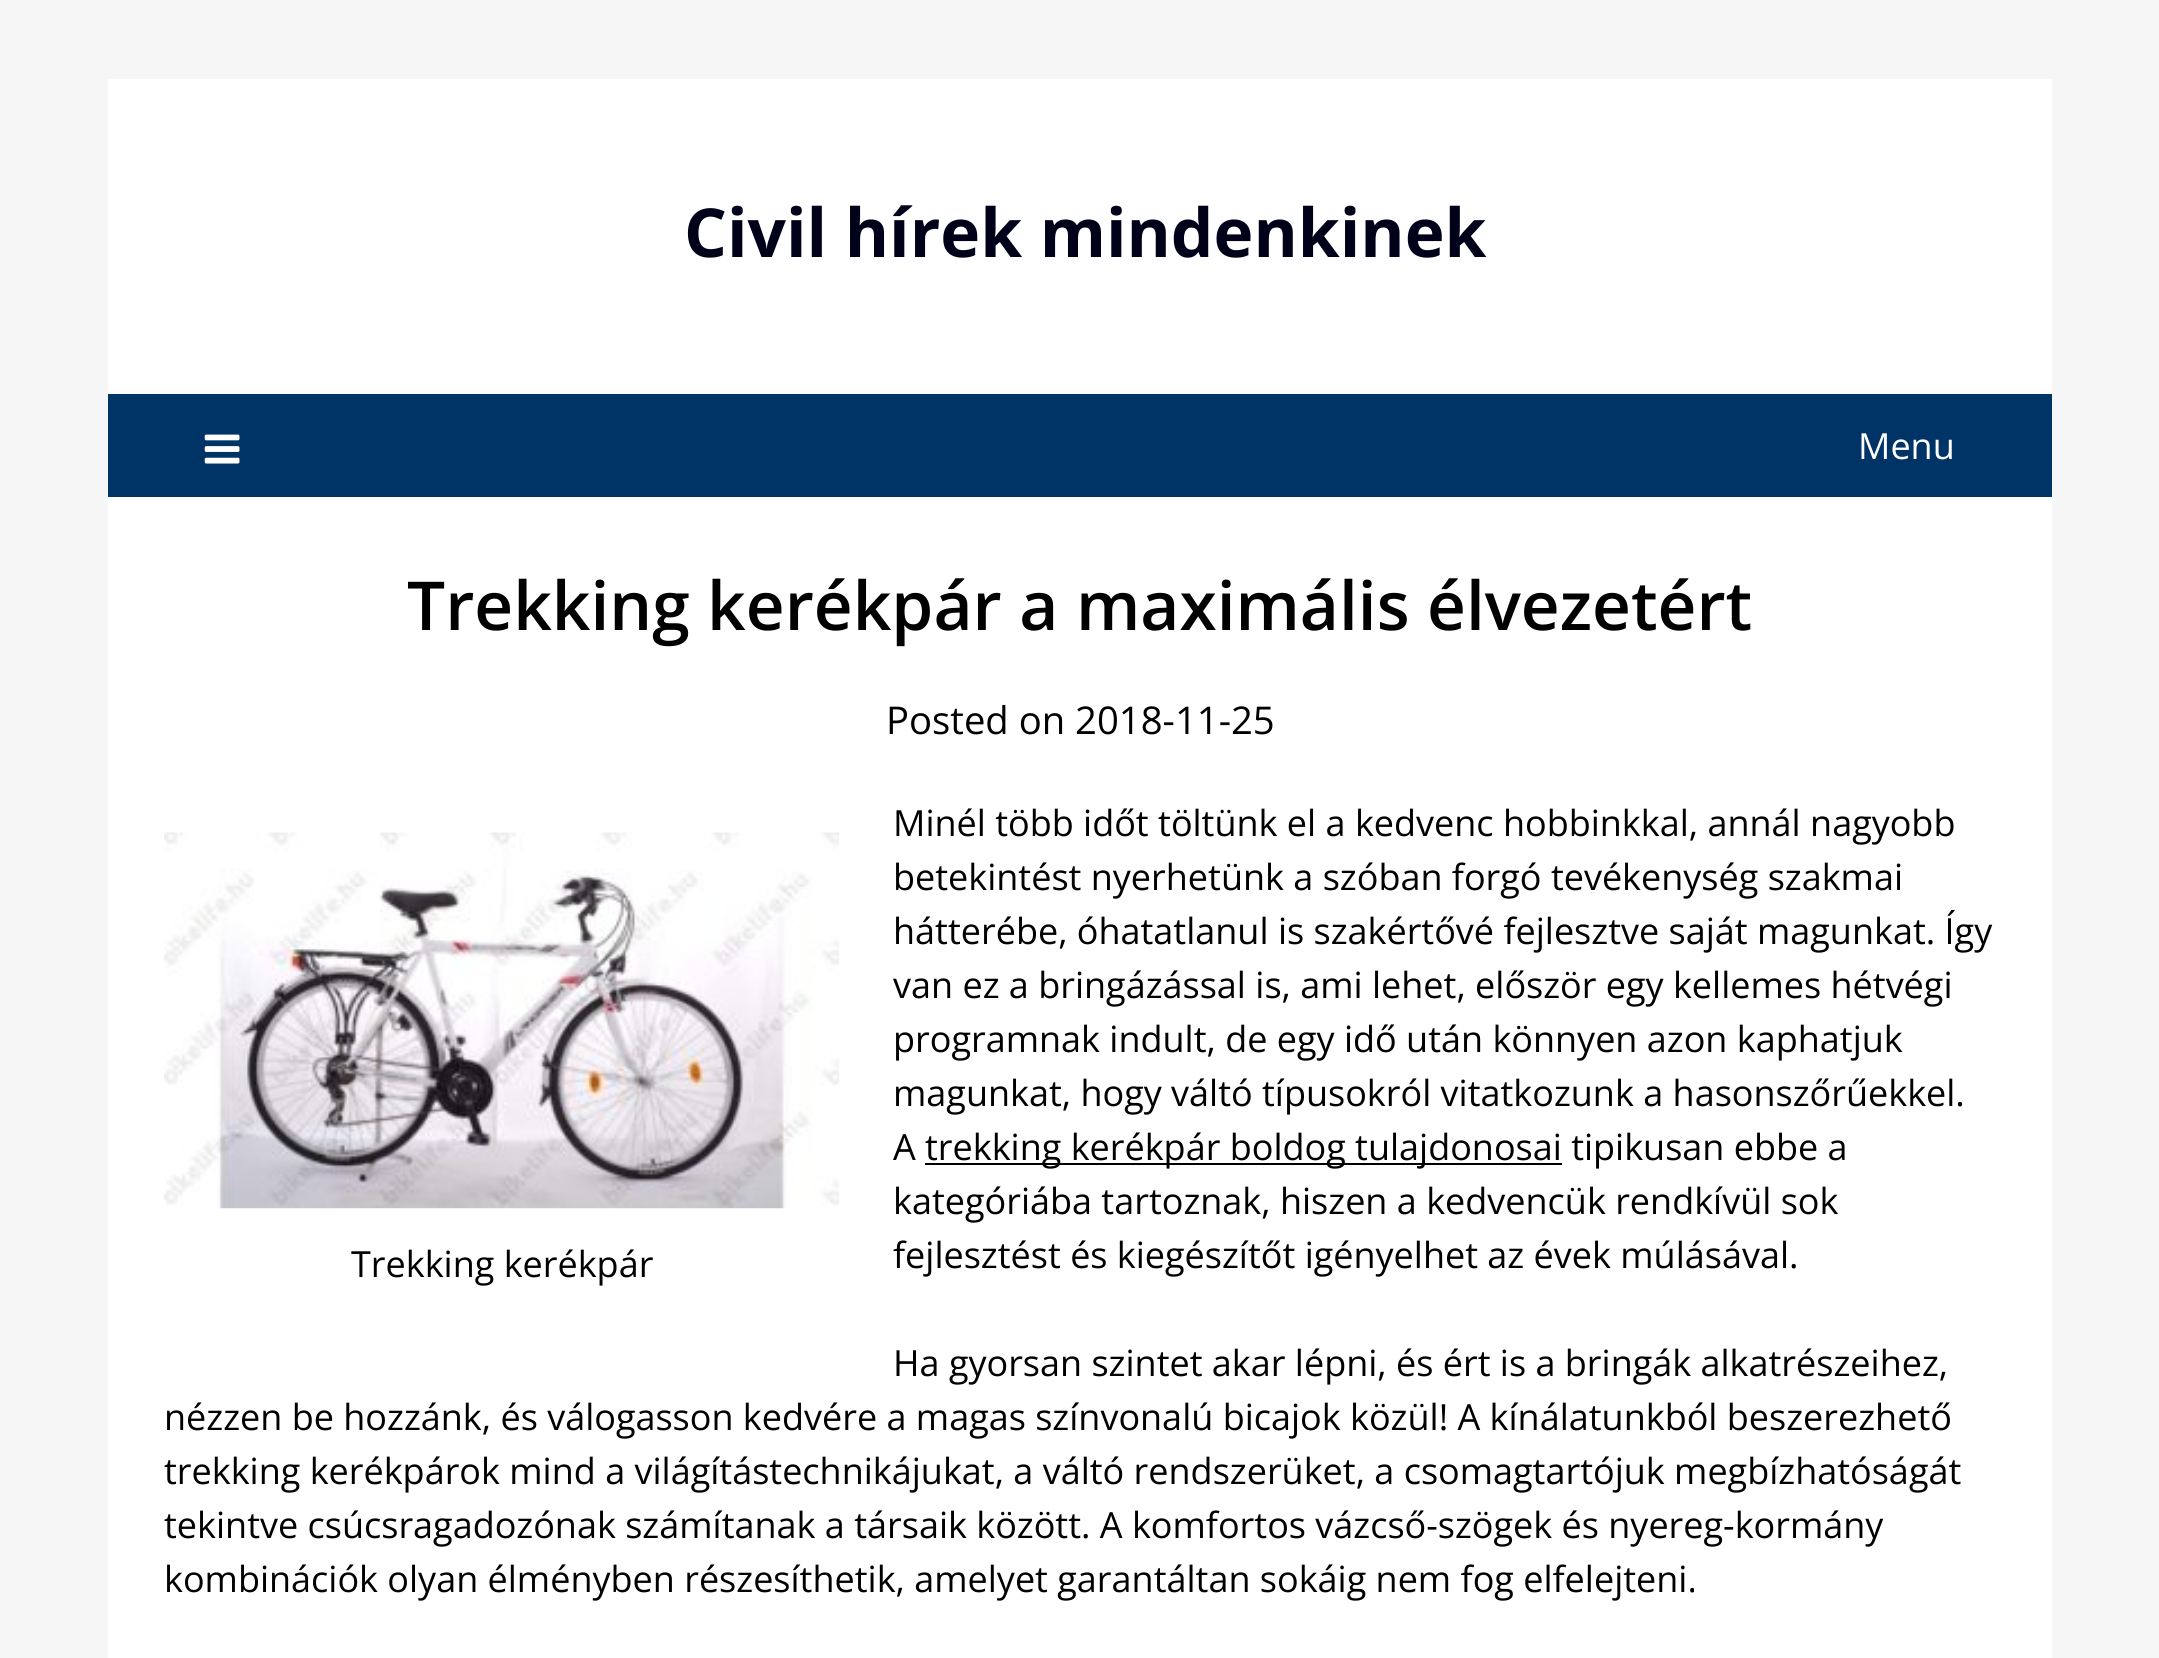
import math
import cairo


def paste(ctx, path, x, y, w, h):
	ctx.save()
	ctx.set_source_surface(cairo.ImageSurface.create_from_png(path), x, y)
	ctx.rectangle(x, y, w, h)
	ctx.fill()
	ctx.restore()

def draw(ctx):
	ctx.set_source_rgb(0.961, 0.961, 0.961)
	ctx.paint()
	ctx.set_source_rgb(1, 1, 1)
	ctx.rectangle(108, 79, 1944, 315)
	ctx.fill()
	ctx.select_font_face('Open Sans', cairo.FONT_SLANT_NORMAL, cairo.FONT_WEIGHT_BOLD)
	ctx.set_font_size(67.5)
	ctx.set_source_rgb(0, 0.008, 0.102)
	ctx.move_to(684, 257)
	ctx.show_text('Civil hírek mindenkinek')
	ctx.set_source_rgb(0, 0.2, 0.4)
	ctx.rectangle(108, 394, 1944, 103)
	ctx.fill()
	paste(ctx, 'media/1.png', 204, 434, 36, 30)
	ctx.select_font_face('Open Sans')
	ctx.set_font_size(36)
	ctx.set_source_rgb(1, 1, 1)
	ctx.move_to(1858, 459)
	ctx.show_text('Menu')
	ctx.rectangle(108, 497, 1944, 1161)
	ctx.fill()
	ctx.select_font_face('Open Sans SemiBold')
	ctx.set_font_size(67.5)
	ctx.set_source_rgb(0, 0, 0)
	ctx.move_to(407, 630)
	ctx.show_text('Trekking kerékpár a maximális élvezetért')
	ctx.select_font_face('Open Sans')
	ctx.set_font_size(38.25)
	ctx.move_to(886, 734)
	ctx.show_text('Posted on 2018-11-25')
	paste(ctx, 'media/2.png', 164, 832, 676, 377)
	ctx.set_font_size(36)
	for x, y, s in [
		(351, 1277, 'Trekking kerékpár'),
		(893, 836, 'Minél több időt töltünk el a kedvenc hobbinkkal, annál nagyobb'),
		(893, 890, 'betekintést nyerhetünk a szóban forgó tevékenység szakmai'),
		(893, 944, 'hátterébe, óhatatlanul is szakértővé fejlesztve saját magunkat. Így'),
		(893, 998, 'van ez a bringázással is, ami lehet, először egy kellemes hétvégi'),
		(893, 1052, 'programnak indult, de egy idő után könnyen azon kaphatjuk'),
		(893, 1106, 'magunkat, hogy váltó típusokról vitatkozunk a hasonszőrűekkel.'),
		(893, 1160, 'A'),
	]:
		ctx.move_to(x, y)
		ctx.show_text(s)
	ctx.rectangle(925, 1163, 637, 2)
	ctx.fill()
	for x, y, s in [
		(925, 1160, 'trekking kerékpár boldog tulajdonosai tipikusan ebbe a'),
		(893, 1214, 'kategóriába tartoznak, hiszen a kedvencük rendkívül sok'),
		(893, 1268, 'fejlesztést és kiegészítőt igényelhet az évek múlásával.'),
		(893, 1376, 'Ha gyorsan szintet akar lépni, és ért is a bringák alkatrészeihez,'),
		(164, 1430, 'nézzen be hozzánk, és válogasson kedvére a magas színvonalú bicajok közül! A kínálatunkból beszerezhető'),
		(164, 1484, 'trekking kerékpárok mind a világítástechnikájukat, a váltó rendszerüket, a csomagtartójuk megbízhatóságát'),
		(164, 1538, 'tekintve csúcsragadozónak számítanak a társaik között. A komfortos vázcső-szögek és nyereg-kormány'),
		(164, 1592, 'kombinációk olyan élményben részesíthetik, amelyet garantáltan sokáig nem fog elfelejteni.'),
	]:
		ctx.move_to(x, y)
		ctx.show_text(s)


surface = cairo.ImageSurface(cairo.FORMAT_RGB24, 2159, 1658)
ctx = cairo.Context(surface)
options = cairo.FontOptions()
options.set_hint_metrics(cairo.HINT_METRICS_OFF)
options.set_hint_style(cairo.HINT_STYLE_NONE)
ctx.set_font_options(options)
ctx.set_miter_limit(4)
draw(ctx)
surface.write_to_png('image.png')
